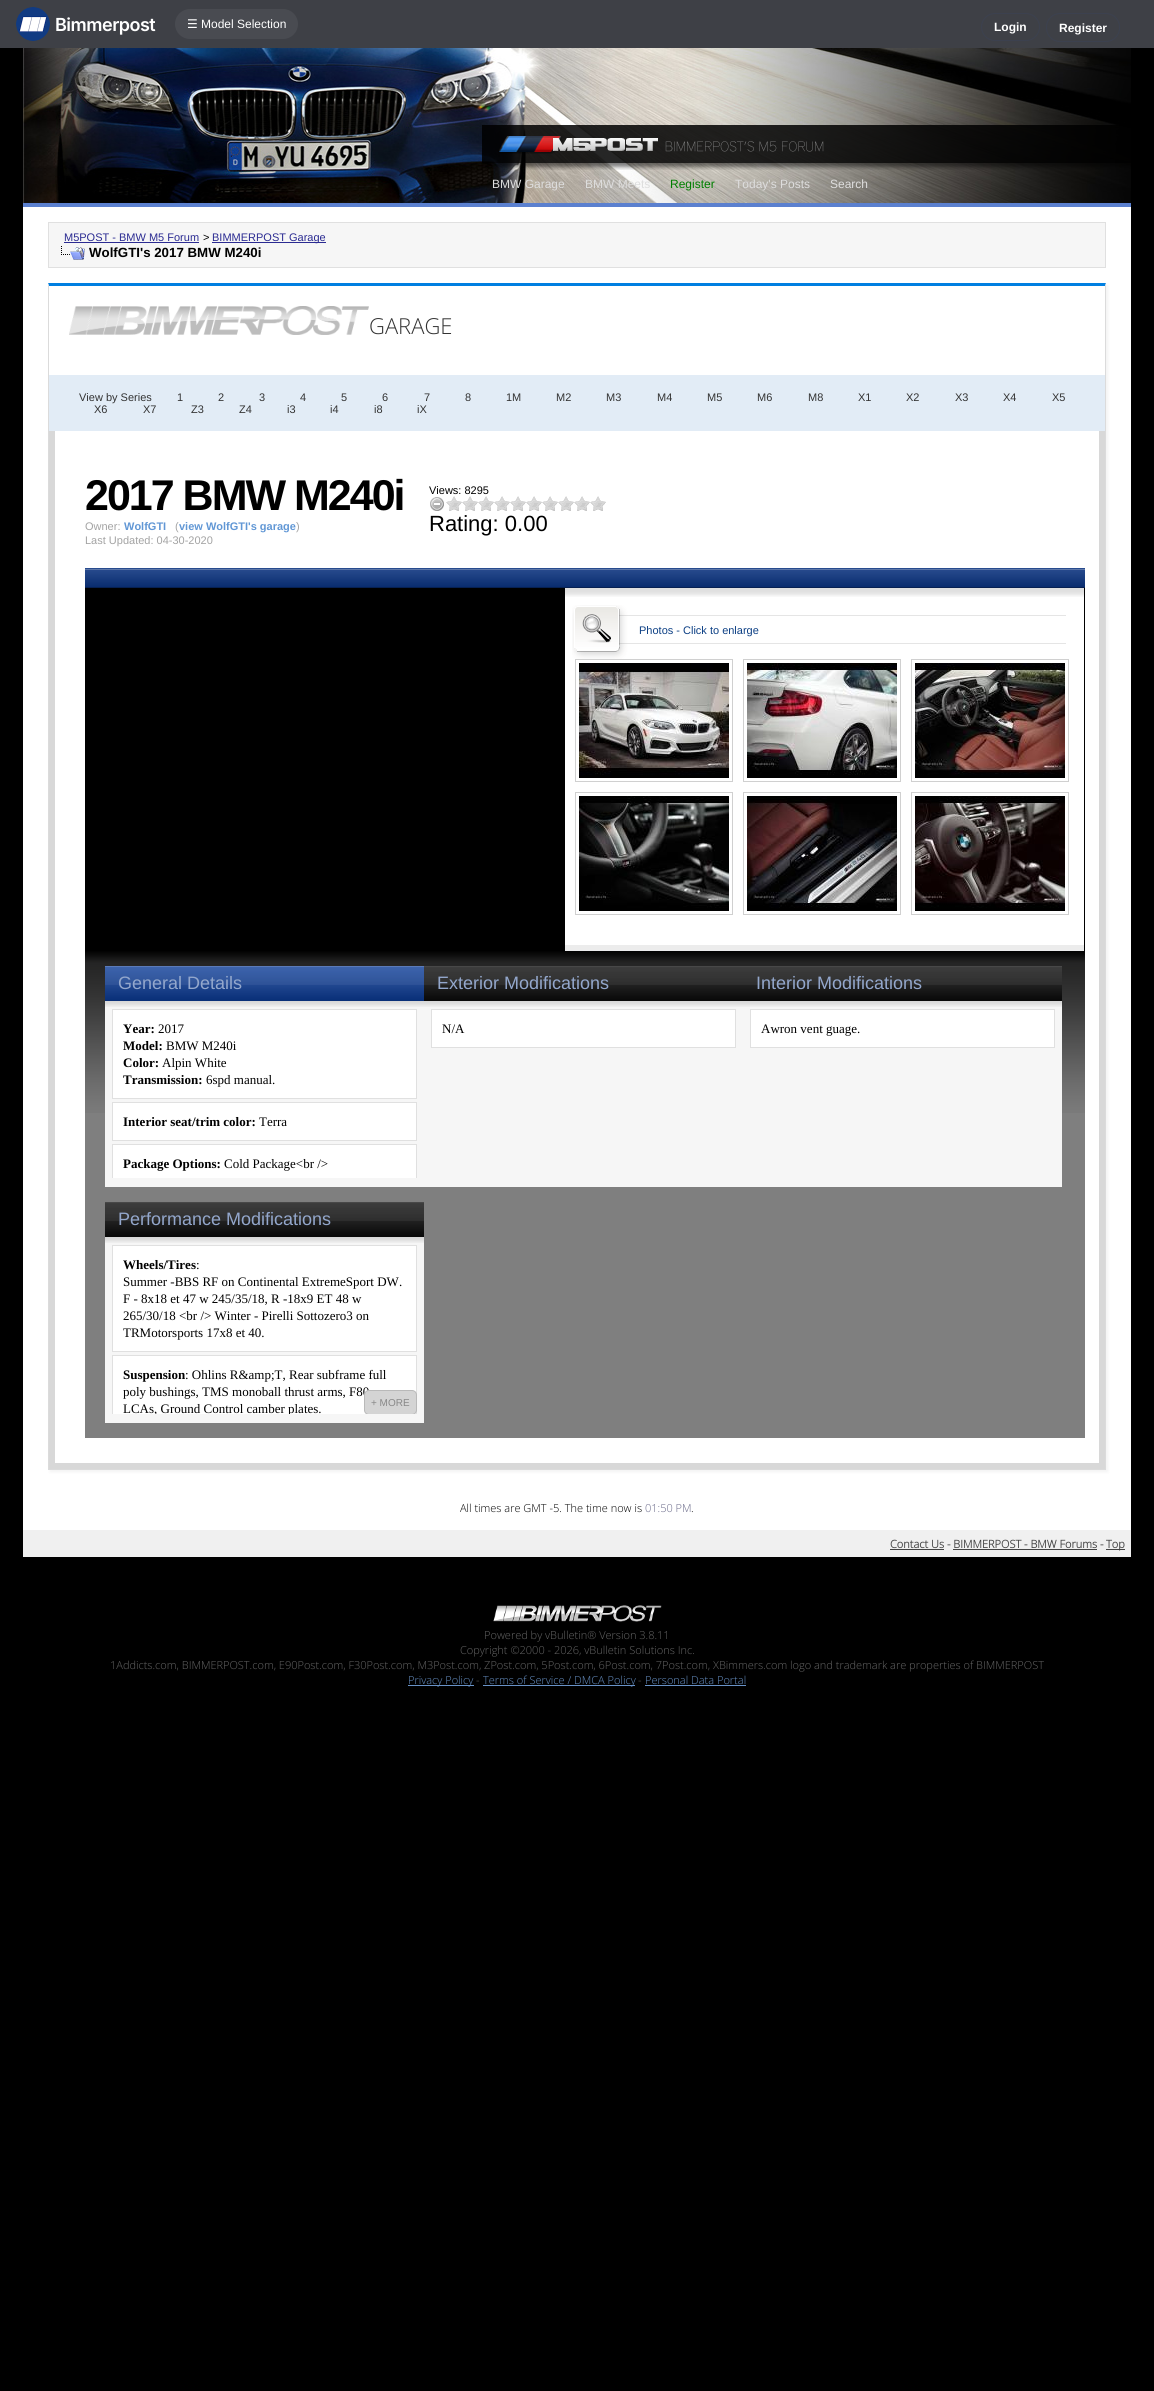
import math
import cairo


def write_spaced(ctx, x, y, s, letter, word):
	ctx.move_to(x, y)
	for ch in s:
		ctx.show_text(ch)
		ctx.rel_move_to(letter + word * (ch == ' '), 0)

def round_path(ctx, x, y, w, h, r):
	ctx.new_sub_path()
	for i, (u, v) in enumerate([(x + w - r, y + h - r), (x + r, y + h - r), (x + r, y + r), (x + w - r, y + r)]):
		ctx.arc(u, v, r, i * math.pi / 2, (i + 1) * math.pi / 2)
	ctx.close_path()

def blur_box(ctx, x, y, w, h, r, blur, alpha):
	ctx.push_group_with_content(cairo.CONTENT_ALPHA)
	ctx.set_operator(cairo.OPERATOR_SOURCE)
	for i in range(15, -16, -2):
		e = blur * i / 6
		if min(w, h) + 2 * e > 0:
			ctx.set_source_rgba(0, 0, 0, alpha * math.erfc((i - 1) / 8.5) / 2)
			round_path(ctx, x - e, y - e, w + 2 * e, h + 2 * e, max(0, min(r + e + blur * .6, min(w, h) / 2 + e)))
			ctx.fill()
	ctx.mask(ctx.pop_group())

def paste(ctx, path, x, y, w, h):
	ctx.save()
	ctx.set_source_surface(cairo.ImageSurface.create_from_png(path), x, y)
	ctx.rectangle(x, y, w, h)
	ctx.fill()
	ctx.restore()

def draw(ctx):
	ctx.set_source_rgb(0, 0, 0)
	ctx.paint()
	ctx.set_source_rgb(0.243, 0.251, 0.275)
	ctx.rectangle(0, 0, 1154, 48)
	ctx.fill()
	paste(ctx, 'media/1.png', 16, 7, 34, 34)
	ctx.select_font_face('Inter SemiBold')
	ctx.set_font_size(18)
	ctx.set_source_rgb(1, 1, 1)
	write_spaced(ctx, 55, 31, 'Bimmerpost', -0.5, 0)
	ctx.set_source_rgb(0.286, 0.294, 0.318)
	round_path(ctx, 175, 9, 123, 30, 15)
	ctx.fill()
	ctx.select_font_face('DejaVu Sans')
	ctx.set_font_size(12)
	ctx.set_source_rgb(1, 1, 1)
	ctx.move_to(187, 28)
	ctx.show_text('☰')
	ctx.select_font_face('Liberation Sans')
	ctx.move_to(201, 28)
	ctx.show_text('Model Selection')
	round_path(ctx, 981.5, 13.5, 58, 27, 13.5)
	ctx.set_source_rgb(0.235, 0.255, 0.31)
	ctx.set_line_width(1)
	ctx.stroke()
	ctx.select_font_face('Liberation Sans', cairo.FONT_SLANT_NORMAL, cairo.FONT_WEIGHT_BOLD)
	ctx.set_source_rgb(1, 1, 1)
	ctx.move_to(994, 31)
	ctx.show_text('Login')
	round_path(ctx, 1046.5, 13.5, 73, 28, 13.5)
	ctx.set_source_rgb(0.235, 0.255, 0.31)
	ctx.stroke()
	ctx.set_source_rgb(1, 1, 1)
	ctx.move_to(1059, 32)
	ctx.show_text('Register')
	paste(ctx, 'media/2.png', 23, 48, 1108, 155)
	ctx.set_source_rgb(0.357, 0.502, 0.812)
	ctx.rectangle(23, 203, 1108, 4)
	ctx.fill()
	paste(ctx, 'media/3.png', 482, 125, 649, 45)
	paste(ctx, 'media/4.png', 499, 136, 325, 18)
	ctx.select_font_face('Liberation Sans')
	ctx.set_source_rgb(0.867, 0.867, 0.867)
	ctx.move_to(492, 188)
	ctx.show_text('BMW Garage')
	ctx.move_to(585, 188)
	ctx.show_text('BMW Meets')
	ctx.set_source_rgb(0, 0.502, 0)
	ctx.move_to(670, 188)
	ctx.show_text('Register')
	ctx.set_source_rgb(0.867, 0.867, 0.867)
	ctx.move_to(735, 188)
	ctx.show_text('Today\'s Posts')
	ctx.move_to(830, 188)
	ctx.show_text('Search')
	ctx.set_source_rgb(1, 1, 1)
	ctx.rectangle(23, 207, 1108, 1323)
	ctx.fill()
	ctx.set_source_rgb(0.878, 0.878, 0.878)
	ctx.rectangle(48, 222, 1058, 46)
	ctx.fill()
	ctx.set_source_rgb(0.961, 0.961, 0.961)
	ctx.rectangle(49, 223, 1056, 44)
	ctx.fill()
	ctx.set_font_size(11)
	ctx.set_source_rgb(0.169, 0.169, 0.573)
	ctx.move_to(64, 241)
	ctx.show_text('M5POST - BMW M5 Forum')
	ctx.rectangle(64, 242, 135, 1)
	ctx.fill()
	ctx.set_source_rgb(0, 0, 0)
	ctx.move_to(203, 241)
	ctx.show_text('>')
	ctx.set_source_rgb(0.169, 0.169, 0.573)
	ctx.rectangle(212, 242, 114, 1)
	ctx.fill()
	ctx.move_to(212, 241)
	ctx.show_text('BIMMERPOST Garage')
	paste(ctx, 'media/5.png', 61, 246, 24, 14)
	ctx.select_font_face('Liberation Sans', cairo.FONT_SLANT_NORMAL, cairo.FONT_WEIGHT_BOLD)
	ctx.set_font_size(13.3)
	ctx.set_source_rgb(0, 0, 0)
	ctx.move_to(89, 257)
	ctx.show_text('WolfGTI\'s 2017 BMW M240i')
	ctx.save()
	ctx.set_fill_rule(cairo.FILL_RULE_EVEN_ODD)
	ctx.new_path()
	ctx.move_to(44, 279)
	ctx.line_to(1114, 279)
	ctx.line_to(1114, 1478)
	ctx.line_to(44, 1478)
	ctx.close_path()
	ctx.move_to(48, 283)
	ctx.line_to(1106, 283)
	ctx.line_to(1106, 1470)
	ctx.line_to(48, 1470)
	ctx.close_path()
	ctx.clip()
	ctx.set_source_rgb(0, 0, 0)
	blur_box(ctx, 50, 285, 1058, 1187, 0, 1.5, 0.05)
	ctx.restore()
	ctx.set_source_rgb(0, 0.498, 0.882)
	ctx.new_path()
	ctx.move_to(48, 283)
	ctx.line_to(1106, 283)
	ctx.line_to(1105, 286)
	ctx.line_to(49, 286)
	ctx.close_path()
	ctx.fill()
	ctx.set_source_rgb(0.859, 0.859, 0.859)
	ctx.new_path()
	ctx.move_to(1106, 283)
	ctx.line_to(1106, 1470)
	ctx.line_to(1105, 1469)
	ctx.line_to(1105, 286)
	ctx.close_path()
	ctx.fill()
	ctx.rectangle(48, 1469, 1058, 1)
	ctx.fill()
	ctx.new_path()
	ctx.move_to(48, 1470)
	ctx.line_to(48, 283)
	ctx.line_to(49, 286)
	ctx.line_to(49, 1469)
	ctx.close_path()
	ctx.fill()
	paste(ctx, 'media/6.png', 69, 306, 300, 29)
	ctx.select_font_face('Open Sans Light')
	ctx.set_font_size(22)
	ctx.set_source_rgb(0.2, 0.2, 0.2)
	ctx.move_to(369, 334)
	ctx.show_text('GARAGE')
	ctx.set_source_rgb(0.886, 0.925, 0.961)
	ctx.rectangle(49, 375, 1056, 56)
	ctx.fill()
	ctx.select_font_face('Liberation Sans')
	ctx.set_font_size(11)
	ctx.set_source_rgb(0.2, 0.2, 0.2)
	for x, y, s in [
		(79, 401, 'View by Series'),
		(177, 401, '1'),
		(218, 401, '2'),
		(259, 401, '3'),
		(300, 401, '4'),
		(341, 401, '5'),
		(382, 401, '6'),
		(424, 401, '7'),
		(465, 401, '8'),
		(506, 401, '1M'),
		(556, 401, 'M2'),
		(606, 401, 'M3'),
		(657, 401, 'M4'),
		(707, 401, 'M5'),
		(757, 401, 'M6'),
		(808, 401, 'M8'),
		(858, 401, 'X1'),
		(906, 401, 'X2'),
		(955, 401, 'X3'),
		(1003, 401, 'X4'),
		(1052, 401, 'X5'),
		(94, 413, 'X6'),
		(143, 413, 'X7'),
		(191, 413, 'Z3'),
		(239, 413, 'Z4'),
		(287, 413, 'i3'),
		(330, 413, 'i4'),
		(374, 413, 'i8'),
		(417, 413, 'iX'),
	]:
		ctx.move_to(x, y)
		ctx.show_text(s)
	ctx.set_source_rgb(0.847, 0.847, 0.847)
	ctx.rectangle(1099, 431, 6, 1038)
	ctx.rectangle(49, 1463, 1056, 6)
	ctx.rectangle(49, 431, 6, 1038)
	ctx.fill()
	ctx.select_font_face('Liberation Sans', cairo.FONT_SLANT_NORMAL, cairo.FONT_WEIGHT_BOLD)
	ctx.set_font_size(43)
	ctx.set_source_rgb(0, 0, 0)
	write_spaced(ctx, 85, 510, '2017 BMW M240i', -2, 0)
	ctx.select_font_face('Liberation Sans')
	ctx.set_font_size(11)
	ctx.set_source_rgb(0.639, 0.639, 0.639)
	ctx.move_to(85, 530)
	ctx.show_text('Owner:')
	ctx.select_font_face('Liberation Sans', cairo.FONT_SLANT_NORMAL, cairo.FONT_WEIGHT_BOLD)
	ctx.set_source_rgb(0.38, 0.592, 0.835)
	ctx.move_to(124, 530)
	ctx.show_text('WolfGTI')
	ctx.select_font_face('Liberation Sans')
	ctx.set_source_rgb(0.639, 0.639, 0.639)
	ctx.move_to(175, 530)
	ctx.show_text('(')
	ctx.select_font_face('Liberation Sans', cairo.FONT_SLANT_NORMAL, cairo.FONT_WEIGHT_BOLD)
	ctx.set_source_rgb(0.38, 0.592, 0.835)
	ctx.move_to(179, 530)
	ctx.show_text('view WolfGTI\'s garage')
	ctx.select_font_face('Liberation Sans')
	ctx.set_source_rgb(0.639, 0.639, 0.639)
	ctx.move_to(296, 530)
	ctx.show_text(')')
	ctx.move_to(85, 544)
	ctx.show_text('Last Updated: 04-30-2020')
	ctx.set_source_rgb(0, 0, 0)
	ctx.move_to(429, 494)
	ctx.show_text('Views: 8295')
	paste(ctx, 'media/7.png', 430, 497, 14, 14)
	paste(ctx, 'media/8.png', 446, 496, 8, 15)
	paste(ctx, 'media/9.png', 454, 496, 8, 15)
	paste(ctx, 'media/8.png', 462, 496, 8, 15)
	paste(ctx, 'media/9.png', 470, 496, 8, 15)
	paste(ctx, 'media/8.png', 478, 496, 8, 15)
	paste(ctx, 'media/9.png', 486, 496, 8, 15)
	paste(ctx, 'media/8.png', 494, 496, 8, 15)
	paste(ctx, 'media/9.png', 502, 496, 8, 15)
	paste(ctx, 'media/8.png', 510, 496, 8, 15)
	paste(ctx, 'media/9.png', 518, 496, 8, 15)
	paste(ctx, 'media/8.png', 526, 496, 8, 15)
	paste(ctx, 'media/9.png', 534, 496, 8, 15)
	paste(ctx, 'media/8.png', 542, 496, 8, 15)
	paste(ctx, 'media/9.png', 550, 496, 8, 15)
	paste(ctx, 'media/8.png', 558, 496, 8, 15)
	paste(ctx, 'media/9.png', 566, 496, 8, 15)
	paste(ctx, 'media/8.png', 574, 496, 8, 15)
	paste(ctx, 'media/9.png', 582, 496, 8, 15)
	paste(ctx, 'media/8.png', 590, 496, 8, 15)
	paste(ctx, 'media/9.png', 598, 496, 8, 15)
	ctx.set_font_size(22)
	ctx.move_to(429, 531)
	ctx.show_text('Rating: 0.00')
	paste(ctx, 'media/10.png', 85, 568, 1000, 20)
	ctx.rectangle(85, 588, 1000, 363)
	ctx.fill()
	ctx.set_source_rgb(1, 1, 1)
	ctx.rectangle(565, 597, 519, 348)
	ctx.fill()
	paste(ctx, 'media/11.png', 565, 588, 519, 9)
	ctx.set_source_rgb(0.922, 0.922, 0.922)
	ctx.rectangle(565, 945, 519, 6)
	ctx.fill()
	paste(ctx, 'media/12.png', 572, 605, 494, 54)
	ctx.set_font_size(11)
	ctx.set_source_rgb(0.047, 0.247, 0.518)
	ctx.move_to(639, 634)
	ctx.show_text('Photos - Click to enlarge')
	ctx.rectangle(575.5, 659.5, 157, 122)
	ctx.set_source_rgb(0.816, 0.816, 0.816)
	ctx.stroke()
	paste(ctx, 'media/13.png', 579, 663, 150, 115)
	ctx.rectangle(743.5, 659.5, 157, 122)
	ctx.stroke()
	paste(ctx, 'media/14.png', 747, 663, 150, 115)
	ctx.rectangle(911.5, 659.5, 157, 122)
	ctx.stroke()
	paste(ctx, 'media/15.png', 915, 663, 150, 115)
	ctx.rectangle(575.5, 792.5, 157, 122)
	ctx.stroke()
	paste(ctx, 'media/16.png', 579, 796, 150, 115)
	ctx.rectangle(743.5, 792.5, 157, 122)
	ctx.stroke()
	paste(ctx, 'media/17.png', 747, 796, 150, 115)
	ctx.rectangle(911.5, 792.5, 157, 122)
	ctx.stroke()
	paste(ctx, 'media/18.png', 915, 796, 150, 115)
	ctx.set_source_rgb(0.498, 0.498, 0.498)
	ctx.rectangle(85, 1113, 1000, 325)
	ctx.fill()
	paste(ctx, 'media/19.png', 85, 951, 1000, 162)
	ctx.set_source_rgb(0.961, 0.961, 0.961)
	ctx.rectangle(105, 1007, 957, 180)
	ctx.fill()
	paste(ctx, 'media/20.png', 105, 966, 319, 41)
	ctx.set_font_size(18)
	ctx.set_source_rgb(0.576, 0.655, 0.8)
	ctx.move_to(118, 989)
	ctx.show_text('General Details')
	ctx.set_source_rgb(1, 1, 1)
	ctx.rectangle(112.5, 1009.5, 304, 89)
	ctx.fill_preserve()
	ctx.set_source_rgb(0.878, 0.878, 0.878)
	ctx.stroke()
	ctx.select_font_face('Liberation Serif', cairo.FONT_SLANT_NORMAL, cairo.FONT_WEIGHT_BOLD)
	ctx.set_font_size(13)
	ctx.set_source_rgb(0, 0, 0)
	ctx.move_to(123, 1033)
	ctx.show_text('Year:')
	ctx.select_font_face('Liberation Serif')
	ctx.move_to(158, 1033)
	ctx.show_text('2017')
	ctx.select_font_face('Liberation Serif', cairo.FONT_SLANT_NORMAL, cairo.FONT_WEIGHT_BOLD)
	ctx.move_to(123, 1050)
	ctx.show_text('Model:')
	ctx.select_font_face('Liberation Serif')
	ctx.move_to(166, 1050)
	ctx.show_text('BMW M240i')
	ctx.select_font_face('Liberation Serif', cairo.FONT_SLANT_NORMAL, cairo.FONT_WEIGHT_BOLD)
	ctx.move_to(123, 1067)
	ctx.show_text('Color:')
	ctx.select_font_face('Liberation Serif')
	ctx.move_to(162, 1067)
	ctx.show_text('Alpin White')
	ctx.select_font_face('Liberation Serif', cairo.FONT_SLANT_NORMAL, cairo.FONT_WEIGHT_BOLD)
	ctx.move_to(123, 1084)
	ctx.show_text('Transmission:')
	ctx.select_font_face('Liberation Serif')
	ctx.move_to(206, 1084)
	ctx.show_text('6spd manual.')
	ctx.set_source_rgb(1, 1, 1)
	ctx.rectangle(112.5, 1102.5, 304, 38)
	ctx.fill_preserve()
	ctx.set_source_rgb(0.878, 0.878, 0.878)
	ctx.stroke()
	ctx.select_font_face('Liberation Serif', cairo.FONT_SLANT_NORMAL, cairo.FONT_WEIGHT_BOLD)
	ctx.set_source_rgb(0, 0, 0)
	ctx.move_to(123, 1126)
	ctx.show_text('Interior seat/trim color:')
	ctx.select_font_face('Liberation Serif')
	ctx.move_to(259, 1126)
	ctx.show_text('Terra')
	ctx.set_source_rgb(1, 1, 1)
	ctx.rectangle(113, 1145, 303, 33)
	ctx.fill()
	ctx.save()
	ctx.rectangle(105, 966, 319, 212)
	ctx.clip()
	ctx.rectangle(112.5, 1144.5, 304, 55)
	ctx.set_source_rgb(0.878, 0.878, 0.878)
	ctx.stroke()
	ctx.restore()
	ctx.select_font_face('Liberation Serif', cairo.FONT_SLANT_NORMAL, cairo.FONT_WEIGHT_BOLD)
	ctx.set_source_rgb(0, 0, 0)
	ctx.move_to(123, 1168)
	ctx.show_text('Package Options:')
	ctx.select_font_face('Liberation Serif')
	ctx.move_to(224, 1168)
	ctx.show_text('Cold Package<br />')
	paste(ctx, 'media/21.png', 424, 966, 319, 41)
	ctx.select_font_face('Liberation Sans')
	ctx.set_font_size(18)
	ctx.set_source_rgb(0.576, 0.655, 0.8)
	ctx.move_to(437, 989)
	ctx.show_text('Exterior Modifications')
	ctx.set_source_rgb(1, 1, 1)
	ctx.rectangle(431.5, 1009.5, 304, 38)
	ctx.fill_preserve()
	ctx.set_source_rgb(0.878, 0.878, 0.878)
	ctx.stroke()
	ctx.select_font_face('Liberation Serif')
	ctx.set_font_size(13)
	ctx.set_source_rgb(0, 0, 0)
	ctx.move_to(442, 1033)
	ctx.show_text('N/A')
	paste(ctx, 'media/21.png', 743, 966, 319, 41)
	ctx.select_font_face('Liberation Sans')
	ctx.set_font_size(18)
	ctx.set_source_rgb(0.576, 0.655, 0.8)
	ctx.move_to(756, 989)
	ctx.show_text('Interior Modifications')
	ctx.set_source_rgb(1, 1, 1)
	ctx.rectangle(750.5, 1009.5, 304, 38)
	ctx.fill_preserve()
	ctx.set_source_rgb(0.878, 0.878, 0.878)
	ctx.stroke()
	ctx.select_font_face('Liberation Serif')
	ctx.set_font_size(13)
	ctx.set_source_rgb(0, 0, 0)
	ctx.move_to(761, 1033)
	ctx.show_text('Awron vent guage.')
	ctx.set_source_rgb(0.961, 0.961, 0.961)
	ctx.rectangle(105, 1243, 319, 180)
	ctx.fill()
	paste(ctx, 'media/21.png', 105, 1202, 319, 41)
	ctx.select_font_face('Liberation Sans')
	ctx.set_font_size(18)
	ctx.set_source_rgb(0.576, 0.655, 0.8)
	ctx.move_to(118, 1225)
	ctx.show_text('Performance Modifications')
	ctx.set_source_rgb(1, 1, 1)
	ctx.rectangle(112.5, 1245.5, 304, 106)
	ctx.fill_preserve()
	ctx.set_source_rgb(0.878, 0.878, 0.878)
	ctx.stroke()
	ctx.select_font_face('Liberation Serif', cairo.FONT_SLANT_NORMAL, cairo.FONT_WEIGHT_BOLD)
	ctx.set_font_size(13)
	ctx.set_source_rgb(0, 0, 0)
	ctx.move_to(123, 1269)
	ctx.show_text('Wheels/Tires')
	ctx.select_font_face('Liberation Serif')
	for x, y, s in [
		(196, 1269, ':'),
		(123, 1286, 'Summer -BBS RF on Continental ExtremeSport DW.'),
		(123, 1303, 'F - 8x18 et 47 w 245/35/18, R -18x9 ET 48 w'),
		(123, 1320, '265/30/18 <br /> Winter - Pirelli Sottozero3 on'),
		(123, 1337, 'TRMotorsports 17x8 et 40.'),
	]:
		ctx.move_to(x, y)
		ctx.show_text(s)
	ctx.set_source_rgb(1, 1, 1)
	ctx.rectangle(113, 1356, 303, 58)
	ctx.fill()
	ctx.save()
	ctx.rectangle(105, 1202, 319, 212)
	ctx.clip()
	ctx.rectangle(112.5, 1355.5, 304, 72)
	ctx.set_source_rgb(0.878, 0.878, 0.878)
	ctx.stroke()
	ctx.restore()
	ctx.select_font_face('Liberation Serif', cairo.FONT_SLANT_NORMAL, cairo.FONT_WEIGHT_BOLD)
	ctx.set_source_rgb(0, 0, 0)
	ctx.move_to(123, 1379)
	ctx.show_text('Suspension')
	ctx.select_font_face('Liberation Serif')
	ctx.move_to(185, 1379)
	ctx.show_text(': Ohlins R&amp;T, Rear subframe full')
	ctx.move_to(123, 1396)
	ctx.show_text('poly bushings, TMS monoball thrust arms, F80')
	ctx.save()
	ctx.rectangle(105, 1202, 319, 212)
	ctx.clip()
	ctx.move_to(123, 1413)
	ctx.show_text('LCAs, Ground Control camber plates.')
	ctx.set_source_rgb(0.831, 0.831, 0.831)
	round_path(ctx, 364.5, 1390.5, 52, 24, 4.5)
	ctx.fill_preserve()
	ctx.set_source_rgb(0.725, 0.725, 0.725)
	ctx.stroke()
	ctx.restore()
	ctx.select_font_face('Liberation Sans')
	ctx.set_font_size(10)
	ctx.set_source_rgb(0.533, 0.533, 0.533)
	ctx.move_to(371, 1406)
	ctx.show_text('+ MORE')
	ctx.select_font_face('Open Sans Light')
	ctx.set_font_size(11)
	ctx.set_source_rgb(0, 0, 0)
	ctx.move_to(460, 1512)
	ctx.show_text('All times are GMT -5. The time now is')
	ctx.set_source_rgb(0.4, 0.4, 0.525)
	ctx.move_to(645, 1512)
	ctx.show_text('01:50 PM')
	ctx.set_source_rgb(0, 0, 0)
	ctx.move_to(691, 1512)
	ctx.show_text('.')
	ctx.set_source_rgb(0.941, 0.941, 0.941)
	ctx.rectangle(23, 1530, 1108, 27)
	ctx.fill()
	ctx.select_font_face('Open Sans', cairo.FONT_SLANT_NORMAL, cairo.FONT_WEIGHT_BOLD)
	ctx.set_source_rgb(0.267, 0.267, 0.267)
	ctx.move_to(890, 1548)
	ctx.show_text('Contact Us - BIMMERPOST - BMW Forums -')
	ctx.rectangle(890, 1549, 54, 1)
	ctx.rectangle(953, 1549, 144, 1)
	ctx.rectangle(1106, 1549, 19, 1)
	ctx.fill()
	ctx.move_to(1106, 1548)
	ctx.show_text('Top')
	paste(ctx, 'media/22.png', 493, 1605, 169, 17)
	ctx.select_font_face('Open Sans Light')
	ctx.set_source_rgb(0.4, 0.4, 0.4)
	for x, y, s in [
		(484, 1639, 'Powered by vBulletin® Version 3.8.11'),
		(460, 1654, 'Copyright ©2000 - 2026, vBulletin Solutions Inc.'),
		(110, 1669, '1Addicts.com, BIMMERPOST.com, E90Post.com, F30Post.com, M3Post.com, ZPost.com, 5Post.com, 6Post.com, 7Post.com, XBimmers.com logo and trademark are properties of BIMMERPOST'),
	]:
		ctx.move_to(x, y)
		ctx.show_text(s)
	ctx.set_source_rgb(0.408, 0.573, 0.78)
	ctx.rectangle(408, 1685, 66, 1)
	ctx.fill()
	ctx.move_to(408, 1684)
	ctx.show_text('Privacy Policy')
	ctx.set_source_rgb(0.4, 0.4, 0.4)
	ctx.move_to(476, 1684)
	ctx.show_text('-')
	ctx.set_source_rgb(0.408, 0.573, 0.78)
	ctx.rectangle(483, 1685, 152, 1)
	ctx.fill()
	ctx.move_to(483, 1684)
	ctx.show_text('Terms of Service / DMCA Policy')
	ctx.set_source_rgb(0.4, 0.4, 0.4)
	ctx.move_to(638, 1684)
	ctx.show_text('-')
	ctx.set_source_rgb(0.408, 0.573, 0.78)
	ctx.move_to(645, 1684)
	ctx.show_text('Personal Data Portal')
	ctx.rectangle(645, 1685, 101, 1)
	ctx.fill()


surface = cairo.ImageSurface(cairo.FORMAT_RGB24, 1154, 2391)
ctx = cairo.Context(surface)
options = cairo.FontOptions()
options.set_hint_metrics(cairo.HINT_METRICS_OFF)
options.set_hint_style(cairo.HINT_STYLE_NONE)
ctx.set_font_options(options)
ctx.set_miter_limit(4)
draw(ctx)
surface.write_to_png('image.png')
